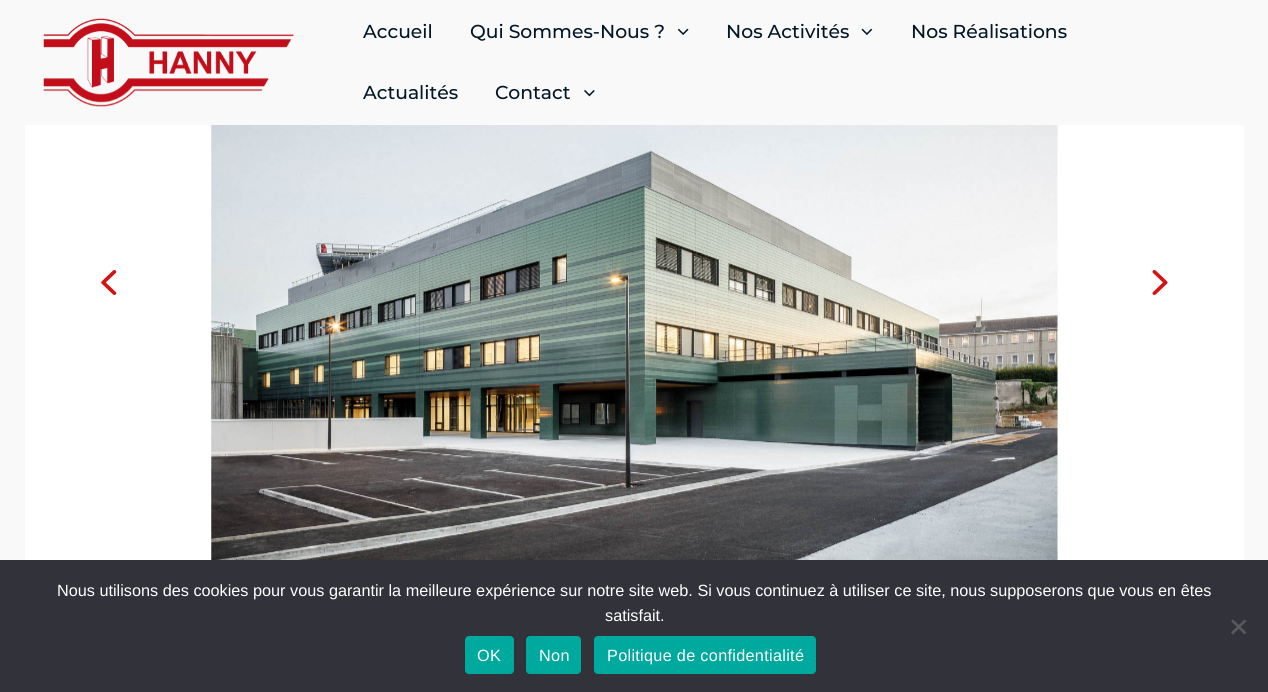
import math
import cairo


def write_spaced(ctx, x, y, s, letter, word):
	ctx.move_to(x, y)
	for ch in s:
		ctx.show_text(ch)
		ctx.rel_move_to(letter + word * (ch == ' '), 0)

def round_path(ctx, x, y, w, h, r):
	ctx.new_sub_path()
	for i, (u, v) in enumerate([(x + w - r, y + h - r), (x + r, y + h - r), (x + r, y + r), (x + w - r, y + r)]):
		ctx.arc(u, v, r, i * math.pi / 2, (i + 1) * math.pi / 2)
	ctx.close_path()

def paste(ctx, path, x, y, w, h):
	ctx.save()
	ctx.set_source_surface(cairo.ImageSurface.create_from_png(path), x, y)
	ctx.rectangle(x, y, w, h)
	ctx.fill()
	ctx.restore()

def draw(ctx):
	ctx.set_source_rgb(0.976, 0.973, 0.973)
	ctx.paint()
	paste(ctx, 'media/1.png', 43, 18, 251, 89)
	ctx.select_font_face('Montserrat Medium')
	ctx.set_font_size(18.75)
	ctx.set_source_rgb(0.004, 0.086, 0.153)
	ctx.move_to(363, 38)
	ctx.show_text('Accueil')
	ctx.move_to(470, 38)
	ctx.show_text('Qui Sommes-Nous ?')
	paste(ctx, 'media/2.png', 678, 28, 11, 7)
	ctx.move_to(726, 38)
	ctx.show_text('Nos Activités')
	paste(ctx, 'media/3.png', 861, 28, 12, 7)
	for x, y, s in [
		(911, 38, 'Nos Réalisations'),
		(363, 99, 'Actualités'),
		(495, 99, 'Contact'),
	]:
		ctx.move_to(x, y)
		ctx.show_text(s)
	paste(ctx, 'media/4.png', 584, 90, 11, 7)
	ctx.set_source_rgb(1, 1, 1)
	ctx.rectangle(25, 125, 1219, 435)
	ctx.fill()
	paste(ctx, 'media/5.png', 101, 270, 16, 25)
	paste(ctx, 'media/6.png', 211, 125, 847, 435)
	paste(ctx, 'media/7.png', 1152, 270, 16, 25)
	ctx.set_source_rgb(0.196, 0.196, 0.227)
	ctx.rectangle(0, 560, 1268, 132)
	ctx.fill()
	ctx.select_font_face('Liberation Sans')
	ctx.set_font_size(16.25)
	ctx.set_source_rgb(1, 1, 1)
	ctx.move_to(57, 596)
	ctx.show_text('Nous utilisons des cookies pour vous garantir la meilleure expérience sur notre site web. Si vous continuez à utiliser ce site, nous supposerons que vous en êtes')
	ctx.move_to(605, 621)
	ctx.show_text('satisfait.')
	ctx.set_source_rgb(0.349, 0.349, 0.365)
	ctx.new_path()
	ctx.move_to(1244.5, 619.5)
	ctx.line_to(1246.5, 621)
	ctx.line_to(1233, 634.5)
	ctx.line_to(1231, 632.5)
	ctx.close_path()
	ctx.fill()
	ctx.new_path()
	ctx.move_to(1231, 621)
	ctx.line_to(1233, 619.5)
	ctx.line_to(1246.5, 632.5)
	ctx.line_to(1244.5, 634.5)
	ctx.close_path()
	ctx.fill()
	ctx.set_source_rgb(0, 0.663, 0.616)
	round_path(ctx, 465, 636, 49, 38, 4)
	ctx.fill()
	ctx.set_source_rgb(1, 1, 1)
	write_spaced(ctx, 477, 661, 'OK', 0.3, 0)
	ctx.set_source_rgb(0, 0.663, 0.616)
	round_path(ctx, 526, 636, 55, 38, 4)
	ctx.fill()
	ctx.set_source_rgb(1, 1, 1)
	write_spaced(ctx, 539, 661, 'Non', 0.3, 0)
	ctx.set_source_rgb(0, 0.663, 0.616)
	round_path(ctx, 594, 636, 222, 38, 4)
	ctx.fill()
	ctx.set_source_rgb(1, 1, 1)
	write_spaced(ctx, 607, 661, 'Politique de confidentialité', 0.3, 0)


surface = cairo.ImageSurface(cairo.FORMAT_RGB24, 1268, 692)
ctx = cairo.Context(surface)
options = cairo.FontOptions()
options.set_hint_metrics(cairo.HINT_METRICS_OFF)
options.set_hint_style(cairo.HINT_STYLE_NONE)
ctx.set_font_options(options)
ctx.set_miter_limit(4)
draw(ctx)
surface.write_to_png('image.png')
